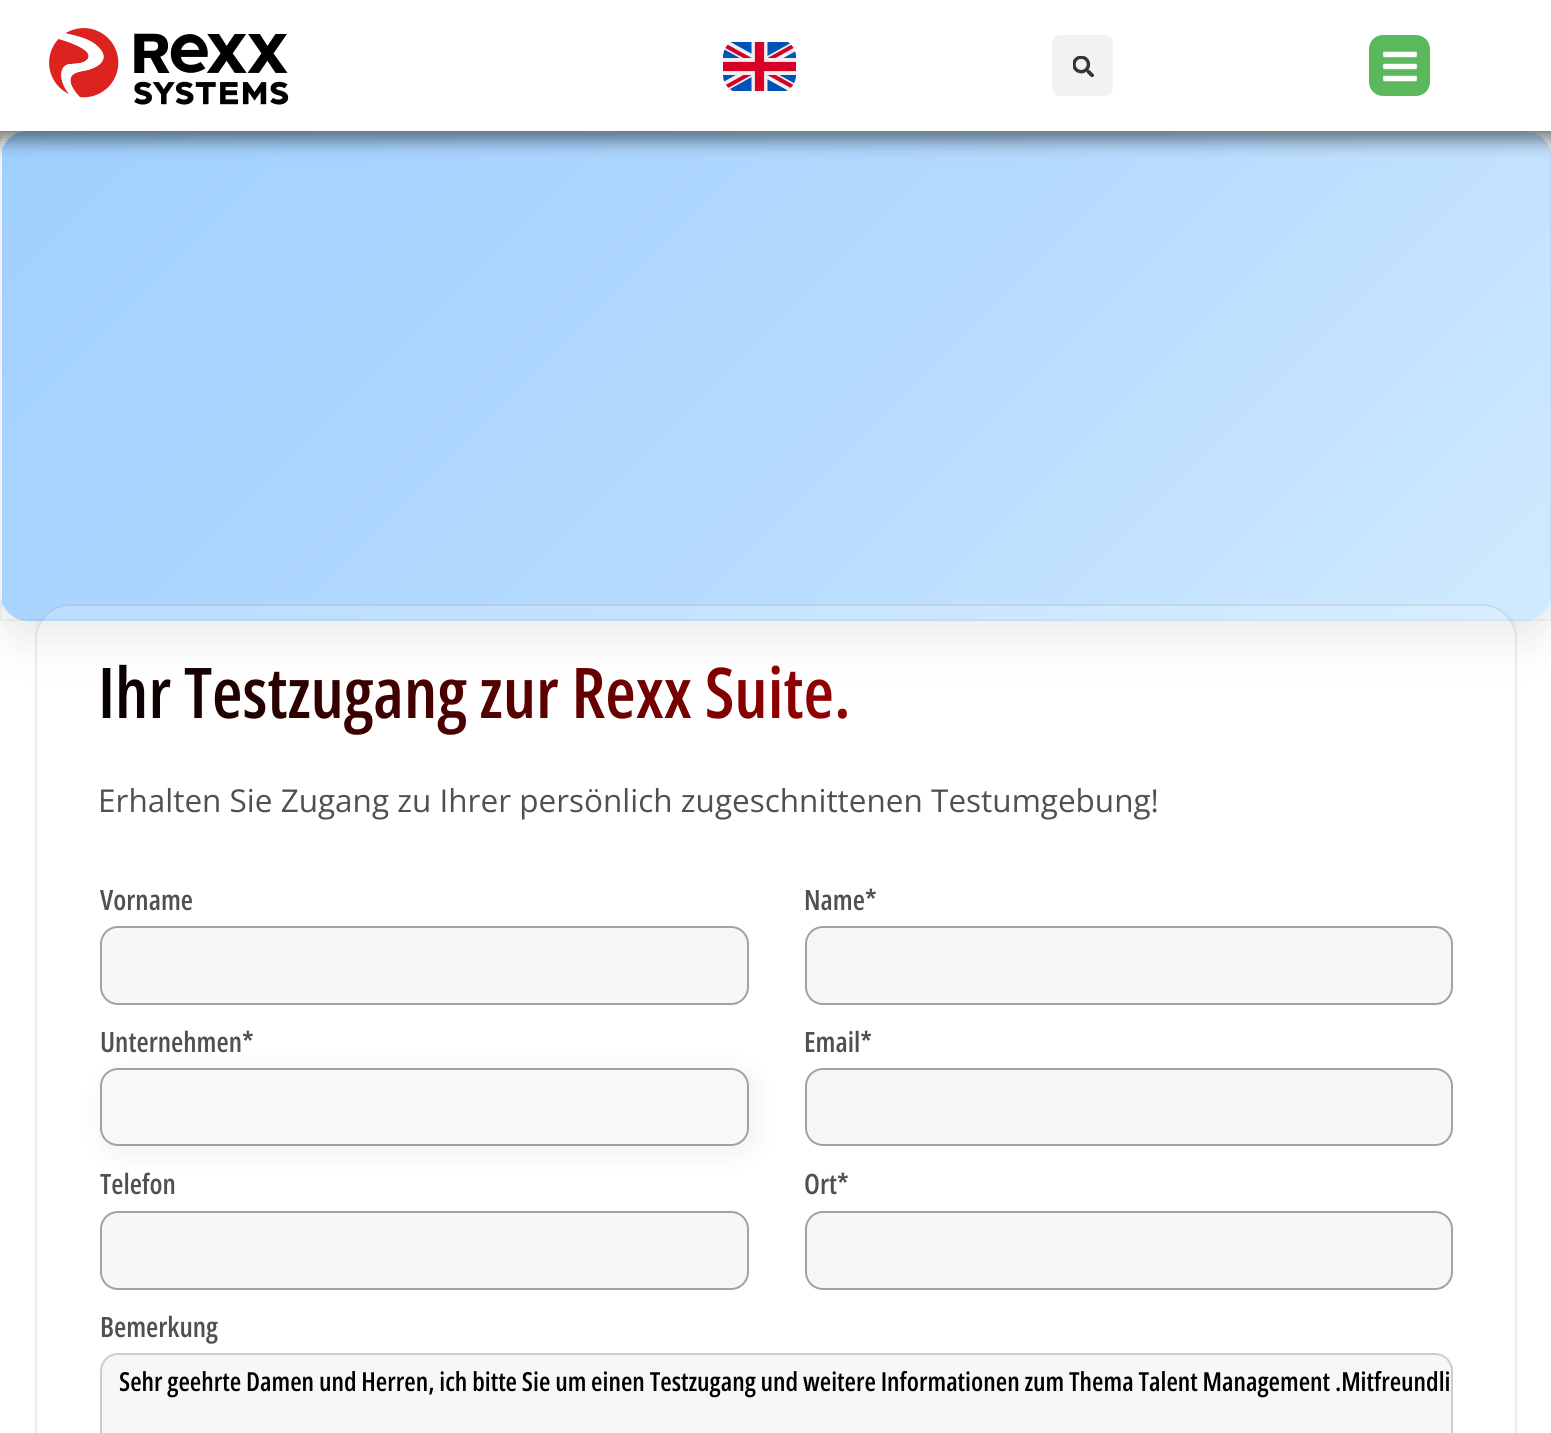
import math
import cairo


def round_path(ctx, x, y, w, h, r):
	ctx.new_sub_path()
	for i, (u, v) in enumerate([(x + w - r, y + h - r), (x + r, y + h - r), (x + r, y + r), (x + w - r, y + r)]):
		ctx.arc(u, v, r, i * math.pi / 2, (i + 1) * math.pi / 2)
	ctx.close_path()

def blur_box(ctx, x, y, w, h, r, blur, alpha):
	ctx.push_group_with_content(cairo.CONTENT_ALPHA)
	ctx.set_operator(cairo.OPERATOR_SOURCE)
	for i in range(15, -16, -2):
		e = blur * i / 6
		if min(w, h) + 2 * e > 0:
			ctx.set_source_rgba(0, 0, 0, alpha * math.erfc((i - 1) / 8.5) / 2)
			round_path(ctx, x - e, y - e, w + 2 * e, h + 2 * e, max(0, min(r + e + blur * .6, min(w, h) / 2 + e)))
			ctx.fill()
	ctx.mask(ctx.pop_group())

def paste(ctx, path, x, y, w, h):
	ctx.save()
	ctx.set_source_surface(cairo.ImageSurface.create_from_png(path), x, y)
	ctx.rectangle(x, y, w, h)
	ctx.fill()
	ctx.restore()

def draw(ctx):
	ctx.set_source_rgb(1, 1, 1)
	ctx.paint()
	ctx.save()
	ctx.set_fill_rule(cairo.FILL_RULE_EVEN_ODD)
	ctx.new_path()
	ctx.move_to(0, 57)
	ctx.line_to(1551, 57)
	ctx.line_to(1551, 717)
	ctx.line_to(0, 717)
	ctx.close_path()
	ctx.move_to(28, 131)
	ctx.line_to(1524, 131)
	ctx.curve_to(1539.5, 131, 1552, 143.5, 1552, 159)
	ctx.line_to(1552, 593)
	ctx.curve_to(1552, 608.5, 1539.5, 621, 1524, 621)
	ctx.line_to(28, 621)
	ctx.curve_to(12.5, 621, 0, 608.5, 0, 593)
	ctx.line_to(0, 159)
	ctx.curve_to(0, 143.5, 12.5, 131, 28, 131)
	ctx.close_path()
	ctx.clip()
	ctx.set_source_rgb(0, 0, 0)
	blur_box(ctx, 0, 142, 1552, 490, 28, 28, 0.12)
	ctx.restore()
	ctx.save()
	round_path(ctx, 0, 131, 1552, 490, 28)
	ctx.clip()
	gradient = cairo.LinearGradient(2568, 664, 533, -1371)
	gradient.add_color_stop_rgba(0, 0.961, 0.98, 1, 1)
	gradient.add_color_stop_rgba(0.25, 0.902, 0.957, 1, 1)
	gradient.add_color_stop_rgba(0.5, 0.816, 0.918, 1, 1)
	gradient.add_color_stop_rgba(0.75, 0.702, 0.851, 1, 1)
	gradient.add_color_stop_rgba(1, 0.627, 0.816, 1, 1)
	ctx.set_source(gradient)
	ctx.rectangle(17, 131, 1518, 2)
	ctx.fill()
	gradient = cairo.LinearGradient(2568, 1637, 533, -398)
	gradient.add_color_stop_rgba(0, 0.961, 0.98, 1, 1)
	gradient.add_color_stop_rgba(0.25, 0.902, 0.957, 1, 1)
	gradient.add_color_stop_rgba(0.5, 0.816, 0.918, 1, 1)
	gradient.add_color_stop_rgba(0.75, 0.702, 0.851, 1, 1)
	gradient.add_color_stop_rgba(1, 0.627, 0.816, 1, 1)
	ctx.set_source(gradient)
	ctx.new_path()
	ctx.move_to(2, 133)
	ctx.line_to(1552, 133)
	ctx.line_to(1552, 593)
	ctx.curve_to(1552, 608.5, 1539.5, 621, 1524, 621)
	ctx.line_to(2, 621)
	ctx.close_path()
	ctx.fill()
	ctx.restore()
	ctx.rectangle(1, 132, 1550, 488)
	ctx.set_source_rgba(0, 0, 0, 0.05)
	ctx.stroke()
	ctx.set_source_rgb(0, 0, 0)
	blur_box(ctx, -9, -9, 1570, 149, 0, 9, 0.5)
	ctx.set_source_rgb(1, 1, 1)
	ctx.rectangle(0, 0, 1551, 131)
	ctx.fill()
	paste(ctx, 'media/1.png', 49, 28, 240, 77)
	paste(ctx, 'media/2.png', 723, 42, 73, 49)
	ctx.set_source_rgb(0.949, 0.949, 0.949)
	round_path(ctx, 1052, 35, 61, 61, 9)
	ctx.fill()
	paste(ctx, 'media/3.png', 1073, 56, 21, 21)
	ctx.set_source_rgb(0.361, 0.722, 0.361)
	round_path(ctx, 1369, 35, 61, 61, 14)
	ctx.fill()
	paste(ctx, 'media/4.png', 1383, 51, 34, 31)
	ctx.set_source_rgba(1, 1, 1, 0.2)
	round_path(ctx, 35, 604, 1482, 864, 35)
	ctx.fill()
	round_path(ctx, 36, 605, 1480, 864, 34)
	ctx.set_source_rgba(0, 0, 0, 0.08)
	ctx.stroke()
	ctx.select_font_face('Open Sans Condensed SemiBold')
	ctx.set_font_size(70)
	gradient = cairo.LinearGradient(72, 691, 1481, 691)
	gradient.add_color_stop_rgba(0, 0, 0, 0, 1)
	gradient.add_color_stop_rgba(0.5, 0.545, 0, 0, 1)
	gradient.add_color_stop_rgba(1, 0.902, 0, 0.149, 1)
	ctx.set_source(gradient)
	ctx.move_to(98, 718)
	ctx.show_text('Ihr Testzugang zur Rexx Suite.')
	ctx.select_font_face('Open Sans')
	ctx.set_font_size(31.5)
	ctx.set_source_rgb(0.314, 0.314, 0.322)
	ctx.move_to(98, 812)
	ctx.show_text('Erhalten Sie Zugang zu Ihrer persönlich zugeschnittenen Testumgebung!')
	ctx.select_font_face('Open Sans Condensed SemiBold')
	ctx.set_font_size(28)
	ctx.move_to(100, 910)
	ctx.show_text('Vorname')
	ctx.set_source_rgba(0.773, 0.773, 0.773, 0.13)
	round_path(ctx, 101, 927, 647, 77, 17)
	ctx.fill_preserve()
	ctx.set_source_rgb(0.639, 0.635, 0.635)
	ctx.stroke()
	ctx.set_source_rgb(0.314, 0.314, 0.322)
	ctx.move_to(804, 910)
	ctx.show_text('Name*')
	ctx.set_source_rgba(0.773, 0.773, 0.773, 0.13)
	round_path(ctx, 806, 927, 646, 77, 17)
	ctx.fill_preserve()
	ctx.set_source_rgb(0.639, 0.635, 0.635)
	ctx.stroke()
	ctx.set_source_rgb(0.314, 0.314, 0.322)
	ctx.move_to(100, 1052)
	ctx.show_text('Unternehmen*')
	ctx.set_source_rgb(0.596, 0.596, 0.596)
	blur_box(ctx, 98, 1066, 663, 93, 25, 9, 0.1)
	ctx.set_source_rgb(0.969, 0.969, 0.969)
	round_path(ctx, 101, 1069, 647, 76, 17)
	ctx.fill_preserve()
	ctx.set_source_rgb(0.639, 0.635, 0.635)
	ctx.stroke()
	ctx.set_source_rgb(0.314, 0.314, 0.322)
	ctx.move_to(804, 1052)
	ctx.show_text('Email*')
	ctx.set_source_rgba(0.773, 0.773, 0.773, 0.13)
	round_path(ctx, 806, 1069, 646, 76, 17)
	ctx.fill_preserve()
	ctx.set_source_rgb(0.639, 0.635, 0.635)
	ctx.stroke()
	ctx.set_source_rgb(0.314, 0.314, 0.322)
	ctx.move_to(100, 1194)
	ctx.show_text('Telefon')
	ctx.set_source_rgba(0.773, 0.773, 0.773, 0.13)
	round_path(ctx, 101, 1212, 647, 77, 17)
	ctx.fill_preserve()
	ctx.set_source_rgb(0.639, 0.635, 0.635)
	ctx.stroke()
	ctx.set_source_rgb(0.314, 0.314, 0.322)
	ctx.move_to(804, 1194)
	ctx.show_text('Ort*')
	ctx.set_source_rgba(0.773, 0.773, 0.773, 0.13)
	round_path(ctx, 806, 1212, 646, 77, 17)
	ctx.fill_preserve()
	ctx.set_source_rgb(0.639, 0.635, 0.635)
	ctx.stroke()
	ctx.set_source_rgb(0.314, 0.314, 0.322)
	ctx.move_to(100, 1337)
	ctx.show_text('Bemerkung')
	ctx.set_source_rgba(0.773, 0.773, 0.773, 0.13)
	round_path(ctx, 101, 1354, 1351, 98, 17)
	ctx.fill_preserve()
	ctx.set_source_rgb(0.8, 0.8, 0.8)
	ctx.stroke()
	ctx.set_font_size(26.25)
	ctx.set_source_rgb(0, 0, 0)
	ctx.move_to(119, 1391)
	ctx.show_text('Sehr geehrte Damen und Herren, ich bitte Sie um einen Testzugang und weitere Informationen zum Thema Talent Management .Mitfreundli')


surface = cairo.ImageSurface(cairo.FORMAT_RGB24, 1551, 1433)
ctx = cairo.Context(surface)
options = cairo.FontOptions()
options.set_hint_metrics(cairo.HINT_METRICS_OFF)
options.set_hint_style(cairo.HINT_STYLE_NONE)
ctx.set_font_options(options)
ctx.set_miter_limit(4)
draw(ctx)
surface.write_to_png('image.png')
